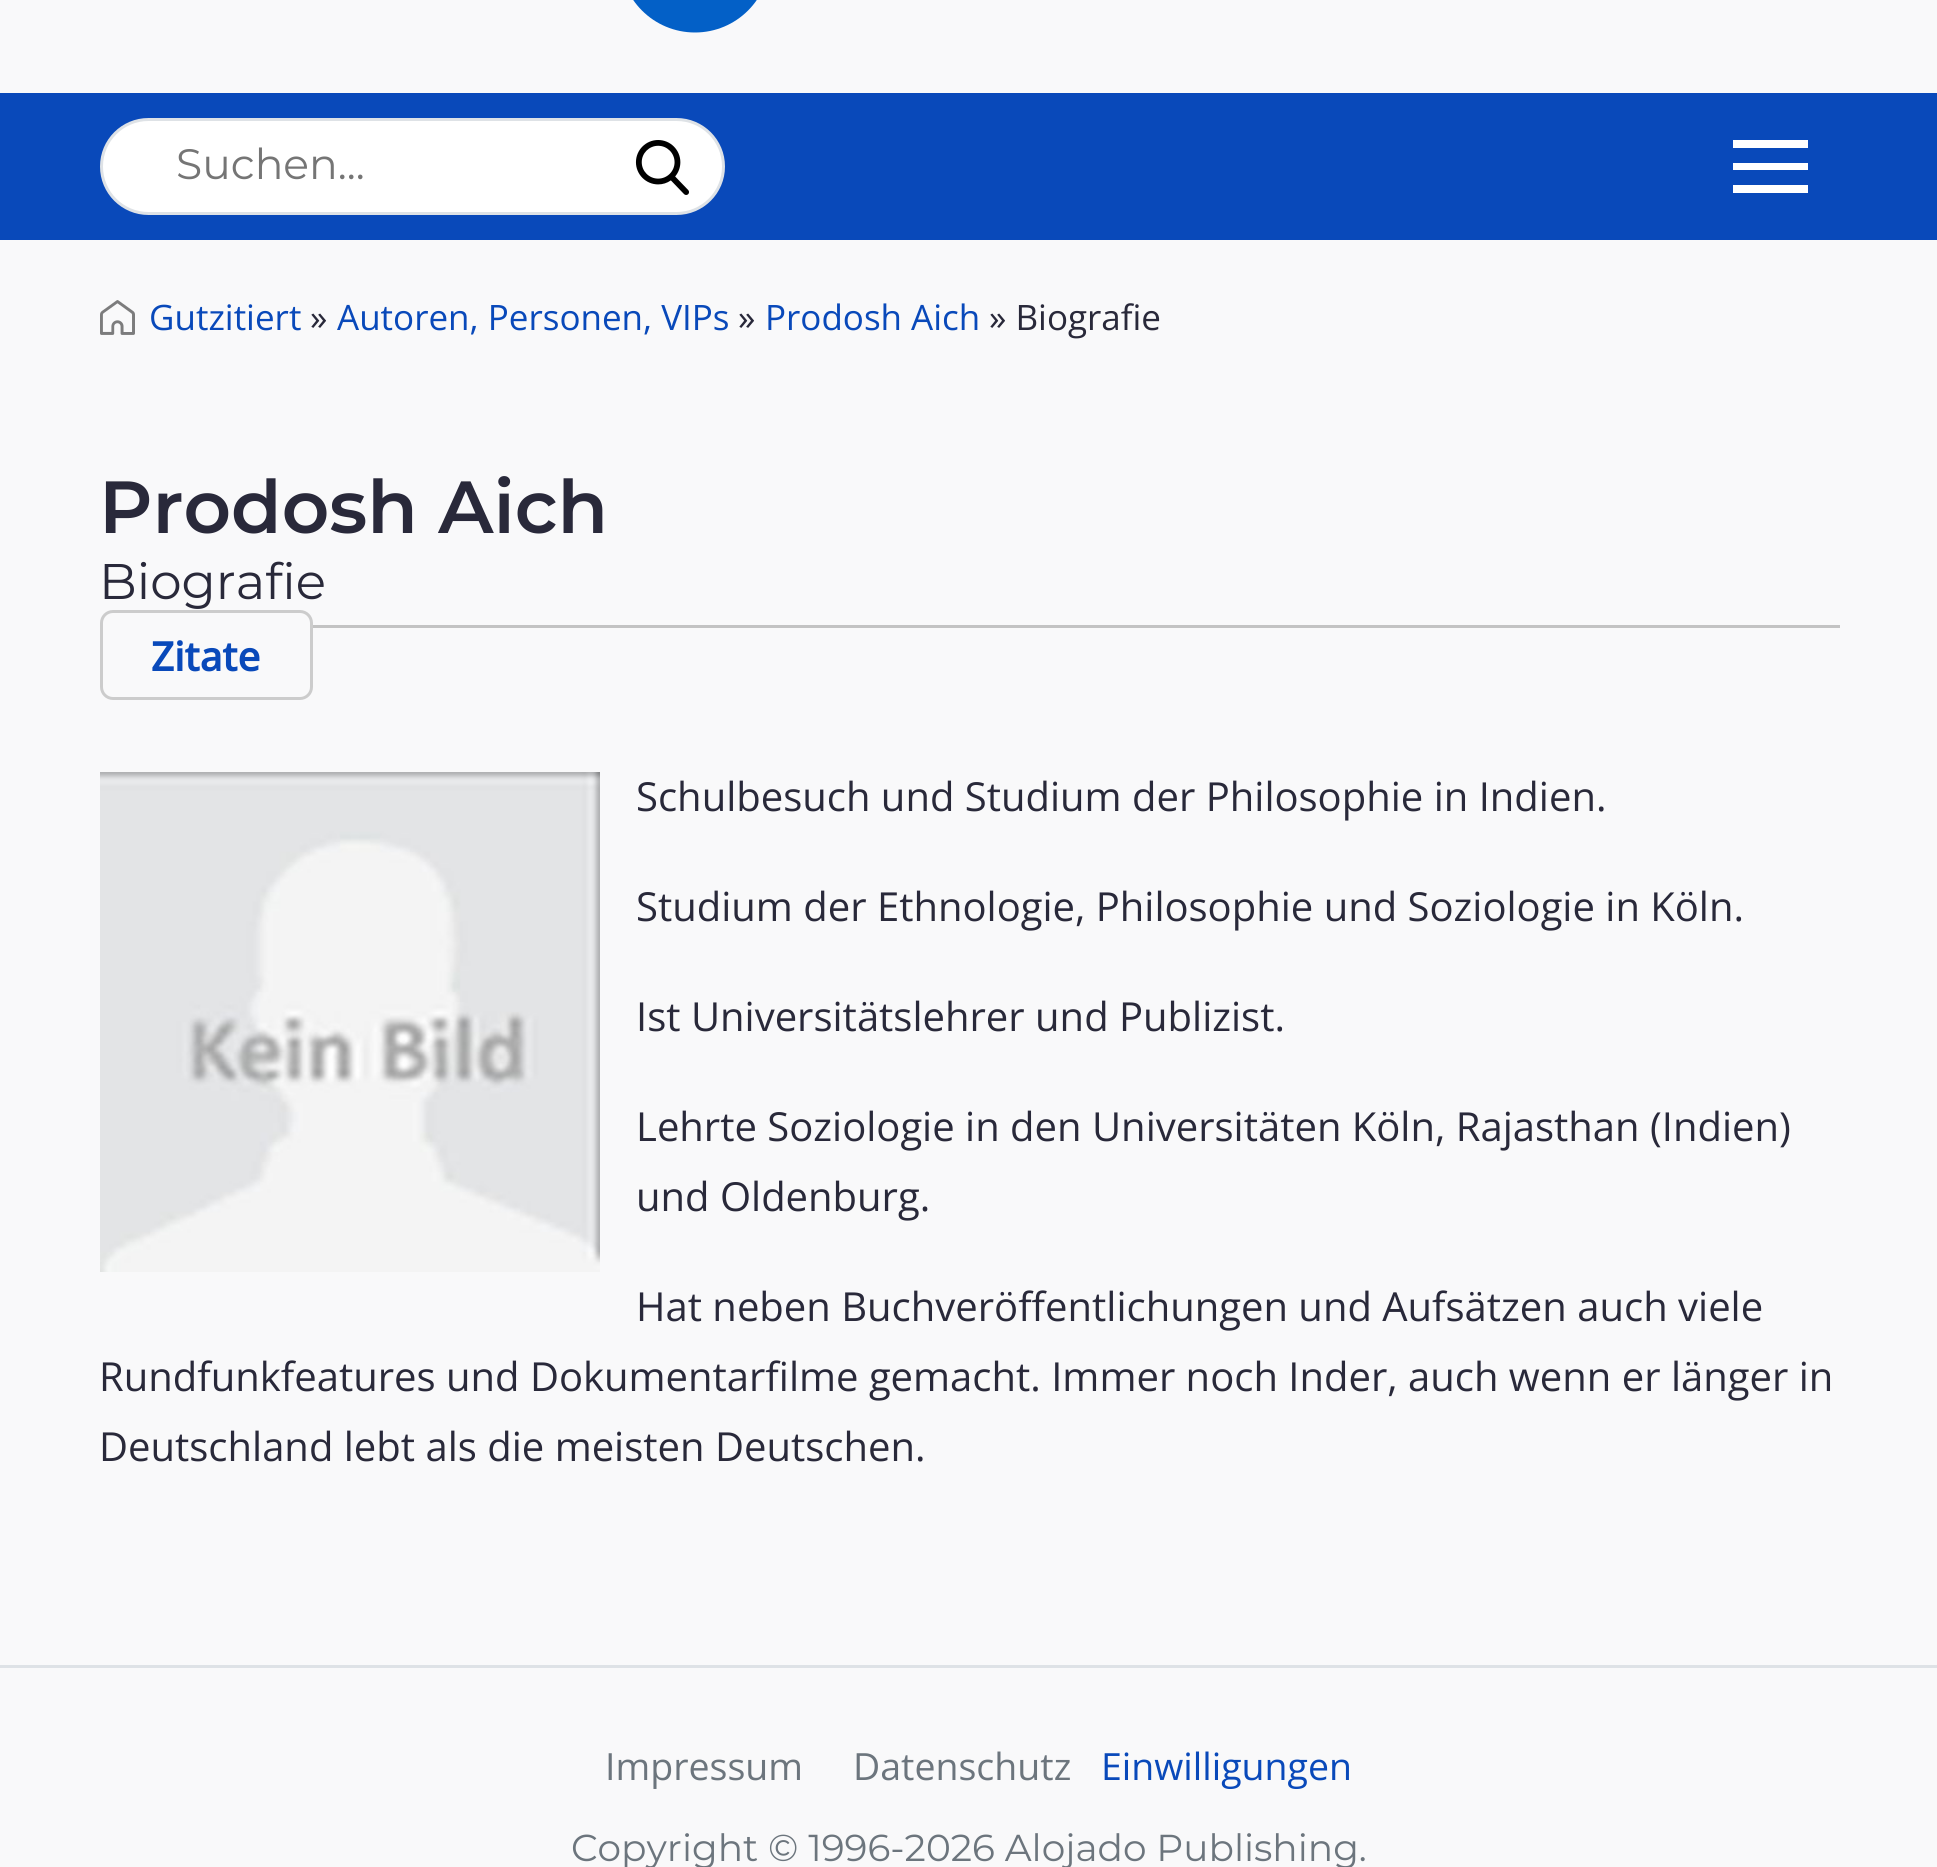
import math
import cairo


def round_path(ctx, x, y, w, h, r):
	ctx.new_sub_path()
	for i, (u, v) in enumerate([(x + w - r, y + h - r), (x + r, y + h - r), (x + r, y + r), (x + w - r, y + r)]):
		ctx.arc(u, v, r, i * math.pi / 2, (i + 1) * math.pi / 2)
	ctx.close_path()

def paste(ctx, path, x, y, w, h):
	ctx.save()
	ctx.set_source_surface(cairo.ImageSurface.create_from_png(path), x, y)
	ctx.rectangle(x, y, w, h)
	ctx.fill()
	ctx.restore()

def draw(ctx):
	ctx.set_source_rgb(0.973, 0.976, 0.98)
	ctx.paint()
	paste(ctx, 'media/1.png', 633, 0, 124, 33)
	ctx.set_source_rgb(0.039, 0.286, 0.729)
	ctx.rectangle(0, 93, 1937, 147)
	ctx.fill()
	ctx.set_source_rgb(1, 1, 1)
	round_path(ctx, 101.5, 119.5, 622, 94, 47)
	ctx.fill_preserve()
	ctx.set_source_rgb(0.871, 0.886, 0.902)
	ctx.set_line_width(3)
	ctx.stroke()
	ctx.select_font_face('Montserrat')
	ctx.set_font_size(42.5)
	ctx.set_source_rgb(0.459, 0.459, 0.459)
	ctx.move_to(176, 179)
	ctx.show_text('Suchen...')
	paste(ctx, 'media/2.png', 635, 140, 54, 55)
	ctx.set_source_rgb(1, 1, 1)
	ctx.rectangle(1733, 140, 75, 8)
	ctx.rectangle(1733, 163, 75, 7)
	ctx.rectangle(1733, 185, 75, 8)
	ctx.fill()
	paste(ctx, 'media/3.png', 100, 300, 35, 35)
	ctx.select_font_face('Open Sans')
	ctx.set_font_size(35)
	ctx.set_source_rgb(0.039, 0.286, 0.729)
	ctx.move_to(149, 330)
	ctx.show_text('Gutzitiert')
	ctx.set_source_rgb(0.161, 0.161, 0.227)
	ctx.move_to(310, 330)
	ctx.show_text('»')
	ctx.set_source_rgb(0.039, 0.286, 0.729)
	ctx.move_to(337, 330)
	ctx.show_text('Autoren, Personen, VIPs')
	ctx.set_source_rgb(0.161, 0.161, 0.227)
	ctx.move_to(738, 330)
	ctx.show_text('»')
	ctx.set_source_rgb(0.039, 0.286, 0.729)
	ctx.move_to(765, 330)
	ctx.show_text('Prodosh Aich')
	ctx.set_source_rgb(0.161, 0.161, 0.227)
	ctx.move_to(989, 330)
	ctx.show_text('» Biografie')
	ctx.select_font_face('Montserrat SemiBold')
	ctx.set_font_size(73.75)
	ctx.move_to(99, 533)
	ctx.show_text('Prodosh Aich')
	ctx.select_font_face('Montserrat')
	ctx.set_font_size(50)
	ctx.move_to(99, 599)
	ctx.show_text('Biografie')
	ctx.set_source_rgb(0.765, 0.765, 0.765)
	ctx.rectangle(313, 625, 1527, 3)
	ctx.fill()
	round_path(ctx, 101.5, 611.5, 210, 87, 11.5)
	ctx.set_source_rgb(0.8, 0.8, 0.8)
	ctx.stroke()
	ctx.select_font_face('Open Sans', cairo.FONT_SLANT_NORMAL, cairo.FONT_WEIGHT_BOLD)
	ctx.set_font_size(40)
	ctx.set_source_rgb(0.039, 0.286, 0.729)
	ctx.move_to(151, 671)
	ctx.show_text('Zitate')
	paste(ctx, 'media/4.png', 100, 772, 500, 500)
	ctx.select_font_face('Open Sans')
	ctx.set_source_rgb(0.161, 0.161, 0.227)
	for x, y, s in [
		(636, 811, 'Schulbesuch und Studium der Philosophie in Indien.'),
		(636, 921, 'Studium der Ethnologie, Philosophie und Soziologie in Köln.'),
		(636, 1031, 'Ist Universitätslehrer und Publizist.'),
		(636, 1141, 'Lehrte Soziologie in den Universitäten Köln, Rajasthan (Indien)'),
		(636, 1211, 'und Oldenburg.'),
		(636, 1321, 'Hat neben Buchveröffentlichungen und Aufsätzen auch viele'),
		(99, 1391, 'Rundfunkfeatures und Dokumentarfilme gemacht. Immer noch Inder, auch wenn er länger in'),
		(99, 1461, 'Deutschland lebt als die meisten Deutschen.'),
	]:
		ctx.move_to(x, y)
		ctx.show_text(s)
	ctx.set_source_rgb(0.871, 0.886, 0.902)
	ctx.rectangle(0, 1665, 1937, 3)
	ctx.fill()
	ctx.set_font_size(37.5)
	ctx.set_source_rgb(0.424, 0.459, 0.49)
	ctx.move_to(605, 1780)
	ctx.show_text('Impressum')
	ctx.move_to(853, 1780)
	ctx.show_text('Datenschutz')
	ctx.set_source_rgb(0.039, 0.286, 0.729)
	ctx.move_to(1101, 1780)
	ctx.show_text('Einwilligungen')
	ctx.select_font_face('Montserrat')
	ctx.set_source_rgb(0.424, 0.459, 0.49)
	ctx.move_to(571, 1861)
	ctx.show_text('Copyright © 1996-2026 Alojado Publishing.')


surface = cairo.ImageSurface(cairo.FORMAT_RGB24, 1937, 1867)
ctx = cairo.Context(surface)
options = cairo.FontOptions()
options.set_hint_metrics(cairo.HINT_METRICS_OFF)
options.set_hint_style(cairo.HINT_STYLE_NONE)
ctx.set_font_options(options)
ctx.set_miter_limit(4)
draw(ctx)
surface.write_to_png('image.png')
